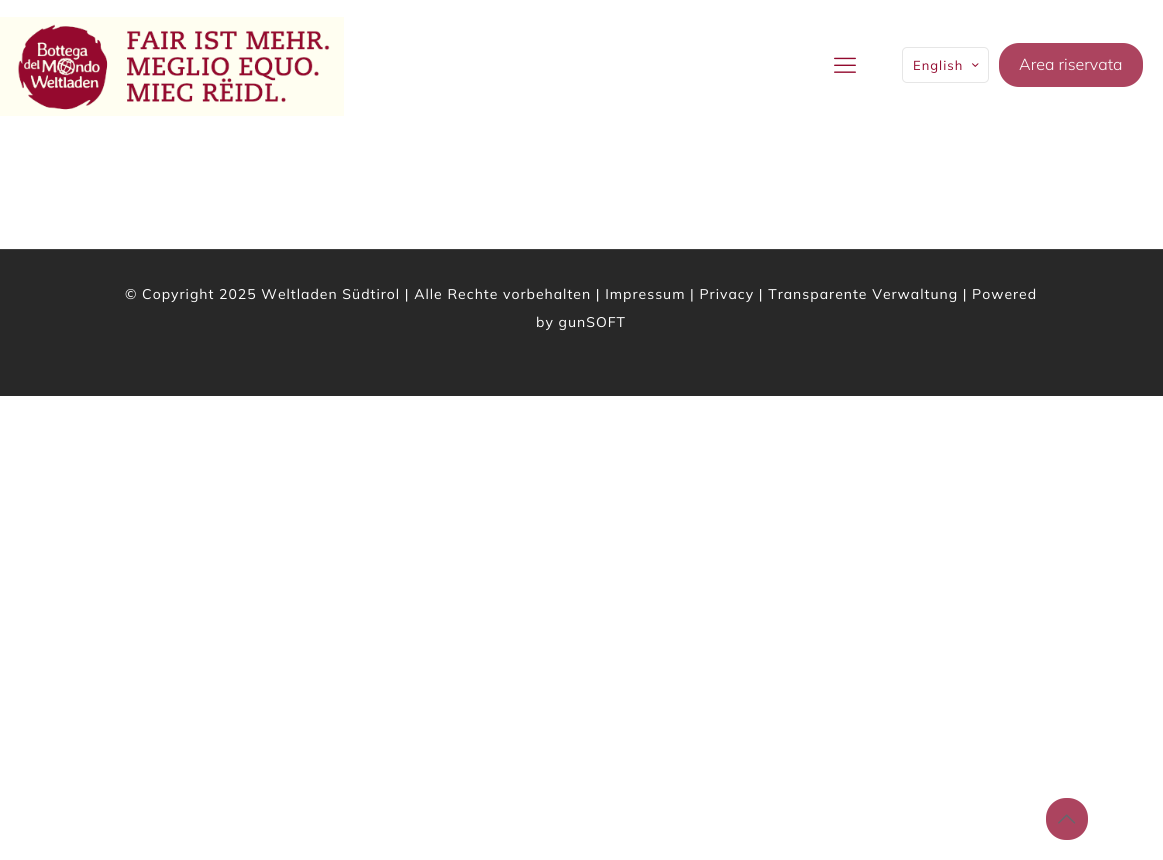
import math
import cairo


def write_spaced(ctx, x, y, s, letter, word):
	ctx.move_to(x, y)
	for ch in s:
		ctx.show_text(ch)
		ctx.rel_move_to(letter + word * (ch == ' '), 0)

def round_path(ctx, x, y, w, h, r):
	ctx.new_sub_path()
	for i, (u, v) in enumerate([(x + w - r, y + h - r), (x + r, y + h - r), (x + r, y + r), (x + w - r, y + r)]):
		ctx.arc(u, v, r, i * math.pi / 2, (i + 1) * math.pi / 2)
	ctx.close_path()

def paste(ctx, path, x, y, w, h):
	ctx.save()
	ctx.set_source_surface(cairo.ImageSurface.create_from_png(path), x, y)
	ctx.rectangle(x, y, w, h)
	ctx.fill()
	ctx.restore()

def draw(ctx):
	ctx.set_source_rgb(1, 1, 1)
	ctx.paint()
	paste(ctx, 'media/1.png', 0, 17, 344, 99)
	paste(ctx, 'media/2.png', 834, 57, 22, 16)
	round_path(ctx, 902.5, 47.5, 86, 35, 4.5)
	ctx.set_source_rgb(0.902, 0.902, 0.902)
	ctx.set_line_width(1)
	ctx.stroke()
	ctx.select_font_face('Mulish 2 ExtraLight')
	ctx.set_font_size(13)
	ctx.set_source_rgb(0.573, 0.035, 0.176)
	write_spaced(ctx, 913, 70, 'English', 1, 0)
	paste(ctx, 'media/3.png', 972, 63, 7, 4)
	ctx.set_source_rgb(0.675, 0.267, 0.373)
	round_path(ctx, 999, 43, 144, 44, 20)
	ctx.fill()
	ctx.select_font_face('Mulish ExtraLight')
	ctx.set_font_size(16)
	ctx.set_source_rgb(1, 1, 1)
	ctx.move_to(1019, 70)
	ctx.show_text('Area riservata')
	ctx.set_source_rgb(0.157, 0.157, 0.157)
	ctx.rectangle(0, 250, 1163, 146)
	ctx.fill()
	ctx.set_source_rgb(0.243, 0.243, 0.243)
	ctx.rectangle(0, 249, 1163, 1)
	ctx.fill()
	ctx.select_font_face('Mulish 2 ExtraLight')
	ctx.set_font_size(14)
	ctx.set_source_rgb(1, 1, 1)
	write_spaced(ctx, 125, 299, '© Copyright 2025 Weltladen Südtirol | Alle Rechte vorbehalten | Impressum | Privacy | Transparente Verwaltung | Powered', 1, 0)
	write_spaced(ctx, 536, 327, 'by gunSOFT', 1, 0)
	ctx.set_source_rgb(0.675, 0.267, 0.373)
	round_path(ctx, 1046, 798, 42, 42, 20)
	ctx.fill()
	paste(ctx, 'media/4.png', 1058, 814, 18, 10)


surface = cairo.ImageSurface(cairo.FORMAT_RGB24, 1163, 860)
ctx = cairo.Context(surface)
options = cairo.FontOptions()
options.set_hint_metrics(cairo.HINT_METRICS_OFF)
options.set_hint_style(cairo.HINT_STYLE_NONE)
ctx.set_font_options(options)
ctx.set_miter_limit(4)
draw(ctx)
surface.write_to_png('image.png')
